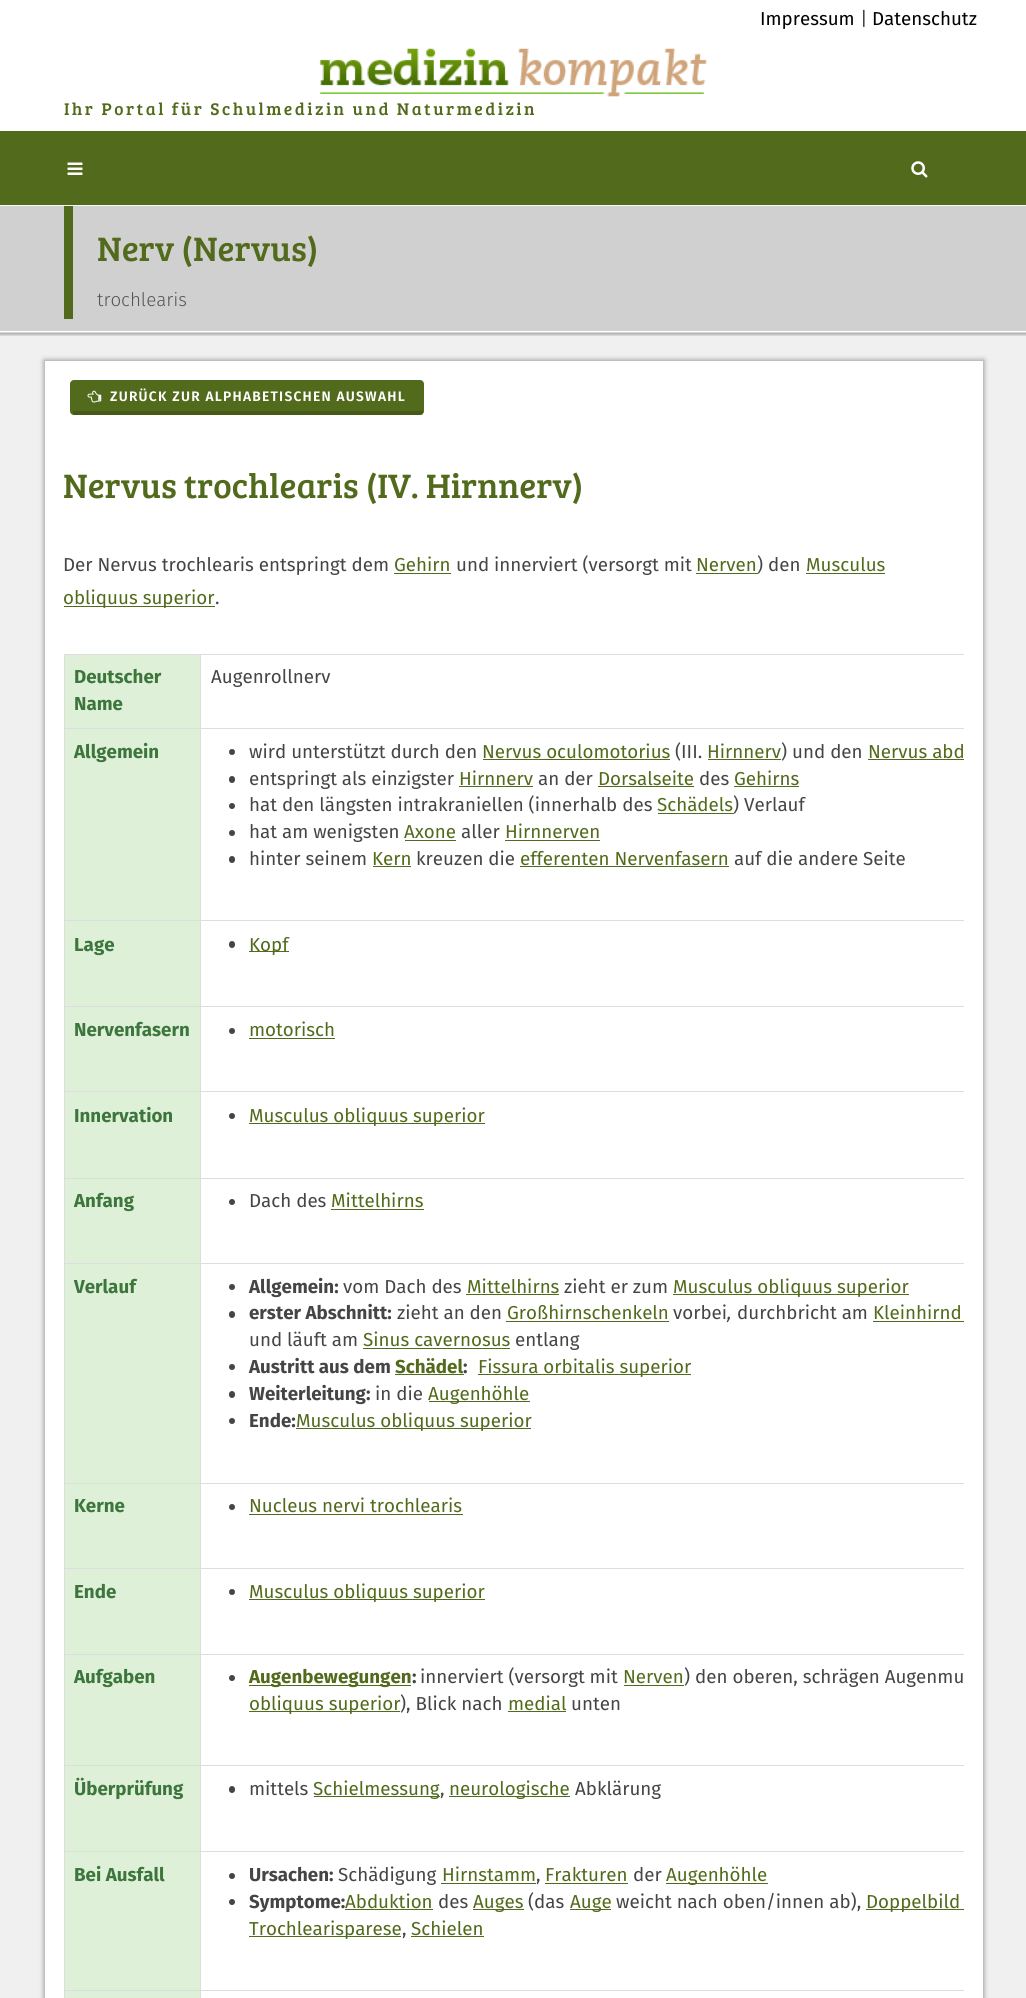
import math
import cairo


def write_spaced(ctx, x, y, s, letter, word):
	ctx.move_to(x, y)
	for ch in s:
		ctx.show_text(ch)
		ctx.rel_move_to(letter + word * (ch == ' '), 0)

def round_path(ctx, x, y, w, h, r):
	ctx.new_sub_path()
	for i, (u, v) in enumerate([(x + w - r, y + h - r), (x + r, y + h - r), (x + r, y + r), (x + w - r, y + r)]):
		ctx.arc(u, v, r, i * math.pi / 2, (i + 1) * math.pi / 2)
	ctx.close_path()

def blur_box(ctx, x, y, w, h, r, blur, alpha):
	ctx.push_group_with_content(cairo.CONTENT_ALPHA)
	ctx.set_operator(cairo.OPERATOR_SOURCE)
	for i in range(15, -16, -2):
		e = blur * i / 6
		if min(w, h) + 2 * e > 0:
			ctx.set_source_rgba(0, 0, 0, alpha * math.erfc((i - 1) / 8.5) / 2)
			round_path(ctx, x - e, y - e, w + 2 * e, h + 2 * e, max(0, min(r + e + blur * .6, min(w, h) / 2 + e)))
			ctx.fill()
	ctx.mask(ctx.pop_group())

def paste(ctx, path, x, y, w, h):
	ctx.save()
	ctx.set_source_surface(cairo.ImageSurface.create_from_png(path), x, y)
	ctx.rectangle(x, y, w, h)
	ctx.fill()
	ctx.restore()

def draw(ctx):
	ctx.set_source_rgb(1, 1, 1)
	ctx.paint()
	ctx.set_source_rgb(0.961, 0.961, 0.961)
	ctx.rectangle(0, 205, 1026, 1)
	ctx.fill()
	ctx.select_font_face('Fira Sans')
	ctx.set_font_size(18.75)
	ctx.set_source_rgb(0, 0, 0)
	ctx.move_to(760, 25)
	ctx.show_text('Impressum')
	ctx.set_source_rgb(0.271, 0.271, 0.271)
	ctx.move_to(860, 25)
	ctx.show_text('|')
	ctx.set_source_rgb(0, 0, 0)
	ctx.move_to(872, 25)
	ctx.show_text('Datenschutz')
	paste(ctx, 'media/1.png', 319, 48, 388, 49)
	ctx.select_font_face('Bree Serif')
	ctx.set_font_size(17.5)
	ctx.set_source_rgb(0.322, 0.416, 0.106)
	write_spaced(ctx, 64, 115, 'Ihr Portal für Schulmedizin und Naturmedizin', 2.5, 0)
	ctx.rectangle(0, 131, 1026, 74)
	ctx.fill()
	paste(ctx, 'media/2.png', 67, 162, 16, 13)
	paste(ctx, 'media/3.png', 911, 161, 17, 17)
	ctx.set_source_rgb(0.816, 0.816, 0.816)
	ctx.rectangle(0, 206, 1026, 125)
	ctx.fill()
	ctx.set_source_rgb(0.322, 0.416, 0.106)
	ctx.rectangle(64, 206, 9, 113)
	ctx.fill()
	ctx.set_font_size(35)
	ctx.move_to(97, 261)
	ctx.show_text('Nerv (Nervus)')
	ctx.select_font_face('Fira Sans Light')
	ctx.set_font_size(18.75)
	ctx.set_source_rgb(0.333, 0.333, 0.333)
	ctx.move_to(97, 306)
	ctx.show_text('trochlearis')
	gradient = cairo.LinearGradient(513, 329, 513, 333)
	gradient.add_color_stop_rgba(0, 0.604, 0.604, 0.604, 1)
	gradient.add_color_stop_rgba(1, 0.878, 0.878, 0.878, 1)
	ctx.set_source(gradient)
	ctx.rectangle(0, 332, 1026, 1)
	ctx.fill()
	gradient = cairo.LinearGradient(513, 332, 513, 336)
	gradient.add_color_stop_rgba(0, 0.604, 0.604, 0.604, 1)
	gradient.add_color_stop_rgba(1, 0.878, 0.878, 0.878, 1)
	ctx.set_source(gradient)
	ctx.rectangle(0, 333, 1026, 3)
	ctx.fill()
	ctx.set_source_rgb(0.941, 0.941, 0.941)
	ctx.rectangle(0, 336, 1026, 1662)
	ctx.fill()
	ctx.set_source_rgb(0.604, 0.604, 0.604)
	blur_box(ctx, 44, 360, 940, 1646, 0, 2.5, 1)
	ctx.set_source_rgb(1, 1, 1)
	ctx.rectangle(45, 361, 938, 1637)
	ctx.fill()
	ctx.set_source_rgb(0.322, 0.416, 0.106)
	round_path(ctx, 70, 380, 354, 35, 4)
	ctx.fill()
	ctx.set_source_rgba(0, 0, 0, 0.15)
	ctx.rectangle(73, 411, 350, 4)
	ctx.fill()
	paste(ctx, 'media/4.png', 87, 390, 15, 13)
	ctx.select_font_face('Fira Sans SemiBold')
	ctx.set_font_size(13.75)
	ctx.set_source_rgb(1, 1, 1)
	write_spaced(ctx, 110, 401, 'ZURÜCK ZUR ALPHABETISCHEN AUSWAHL', 1.25, 0)
	ctx.select_font_face('Bree Serif')
	ctx.set_font_size(35)
	ctx.set_source_rgb(0.322, 0.416, 0.106)
	ctx.move_to(63, 498)
	ctx.show_text('Nervus trochlearis (IV. Hirnnerv)')
	ctx.select_font_face('Fira Sans')
	ctx.set_font_size(18.75)
	ctx.set_source_rgb(0.271, 0.271, 0.271)
	ctx.move_to(63, 571)
	ctx.show_text('Der Nervus trochlearis entspringt dem')
	ctx.set_source_rgb(0.322, 0.416, 0.106)
	ctx.move_to(394, 571)
	ctx.show_text('Gehirn')
	ctx.rectangle(394, 573, 57, 1)
	ctx.fill()
	ctx.set_source_rgb(0.271, 0.271, 0.271)
	ctx.move_to(456, 571)
	ctx.show_text('und innerviert (versorgt mit')
	ctx.set_source_rgb(0.322, 0.416, 0.106)
	ctx.move_to(696, 571)
	ctx.show_text('Nerven')
	ctx.rectangle(696, 573, 62, 1)
	ctx.fill()
	ctx.set_source_rgb(0.271, 0.271, 0.271)
	ctx.move_to(757, 571)
	ctx.show_text(') den')
	ctx.set_source_rgb(0.322, 0.416, 0.106)
	ctx.move_to(806, 571)
	ctx.show_text('Musculus')
	ctx.rectangle(806, 573, 79, 1)
	ctx.fill()
	ctx.rectangle(64, 606, 151, 1)
	ctx.fill()
	ctx.move_to(63, 604)
	ctx.show_text('obliquus superior')
	ctx.set_source_rgb(0.271, 0.271, 0.271)
	ctx.move_to(215, 604)
	ctx.show_text('.')
	ctx.set_source_rgb(0.867, 0.867, 0.867)
	ctx.rectangle(64, 654, 900, 1)
	ctx.fill()
	ctx.set_source_rgb(0.875, 0.941, 0.847)
	ctx.rectangle(64, 1991, 137, 7)
	ctx.fill()
	ctx.set_source_rgb(0.867, 0.867, 0.867)
	ctx.rectangle(64, 654, 1, 1344)
	ctx.fill()
	ctx.set_source_rgb(0.875, 0.941, 0.847)
	ctx.rectangle(65, 655, 135, 73)
	ctx.fill()
	ctx.select_font_face('Fira Sans', cairo.FONT_SLANT_NORMAL, cairo.FONT_WEIGHT_BOLD)
	ctx.set_source_rgb(0.235, 0.463, 0.239)
	ctx.move_to(74, 683)
	ctx.show_text('Deutscher')
	ctx.move_to(74, 710)
	ctx.show_text('Name')
	ctx.set_source_rgb(0.867, 0.867, 0.867)
	ctx.rectangle(200, 728, 764, 1)
	ctx.rectangle(200, 920, 764, 1)
	ctx.rectangle(200, 1006, 764, 1)
	ctx.fill()
	ctx.set_source_rgb(0.875, 0.941, 0.847)
	ctx.rectangle(65, 1007, 135, 171)
	ctx.fill()
	ctx.set_source_rgb(0.867, 0.867, 0.867)
	ctx.rectangle(200, 1091, 764, 1)
	ctx.rectangle(200, 1178, 764, 1)
	ctx.rectangle(200, 1263, 764, 1)
	ctx.rectangle(200, 1483, 764, 1)
	ctx.rectangle(200, 1568, 764, 1)
	ctx.rectangle(200, 1654, 764, 1)
	ctx.rectangle(200, 1765, 764, 1)
	ctx.rectangle(200, 1851, 764, 1)
	ctx.rectangle(200, 1990, 764, 1)
	ctx.rectangle(200, 1990, 1, 8)
	ctx.rectangle(64, 1990, 137, 1)
	ctx.rectangle(200, 1851, 1, 140)
	ctx.rectangle(64, 1851, 137, 1)
	ctx.rectangle(200, 1765, 1, 88)
	ctx.rectangle(64, 1765, 137, 1)
	ctx.rectangle(200, 1654, 1, 112)
	ctx.rectangle(64, 1654, 137, 1)
	ctx.rectangle(200, 1568, 1, 87)
	ctx.rectangle(64, 1568, 137, 1)
	ctx.rectangle(200, 1483, 1, 86)
	ctx.rectangle(64, 1483, 137, 1)
	ctx.rectangle(200, 1263, 1, 221)
	ctx.rectangle(64, 1263, 137, 1)
	ctx.rectangle(200, 1178, 1, 86)
	ctx.rectangle(64, 1178, 137, 1)
	ctx.rectangle(200, 1091, 1, 88)
	ctx.rectangle(64, 1091, 137, 1)
	ctx.rectangle(200, 1006, 1, 87)
	ctx.rectangle(64, 1006, 137, 1)
	ctx.rectangle(200, 920, 1, 88)
	ctx.rectangle(64, 920, 137, 1)
	ctx.rectangle(200, 728, 1, 193)
	ctx.rectangle(64, 728, 137, 1)
	ctx.rectangle(200, 654, 1, 75)
	ctx.fill()
	ctx.select_font_face('Fira Sans')
	ctx.set_source_rgb(0.271, 0.271, 0.271)
	ctx.move_to(211, 683)
	ctx.show_text('Augenrollnerv')
	ctx.set_source_rgb(0.875, 0.941, 0.847)
	ctx.rectangle(65, 729, 135, 191)
	ctx.fill()
	ctx.select_font_face('Fira Sans', cairo.FONT_SLANT_NORMAL, cairo.FONT_WEIGHT_BOLD)
	ctx.set_source_rgb(0.235, 0.463, 0.239)
	ctx.move_to(74, 758)
	ctx.show_text('Allgemein')
	ctx.set_source_rgb(0.271, 0.271, 0.271)
	ctx.new_path()
	ctx.arc(232, 752, 3, 0, 2 * math.pi)
	ctx.fill()
	ctx.select_font_face('Fira Sans')
	ctx.move_to(249, 758)
	ctx.show_text('wird unterstützt durch den')
	ctx.set_source_rgb(0.322, 0.416, 0.106)
	ctx.move_to(482, 758)
	ctx.show_text('Nervus oculomotorius')
	ctx.rectangle(483, 759, 187, 1)
	ctx.fill()
	ctx.set_source_rgb(0.271, 0.271, 0.271)
	ctx.move_to(675, 758)
	ctx.show_text('(III.')
	ctx.set_source_rgb(0.322, 0.416, 0.106)
	ctx.move_to(707, 758)
	ctx.show_text('Hirnnerv')
	ctx.rectangle(708, 759, 73, 1)
	ctx.fill()
	ctx.set_source_rgb(0.271, 0.271, 0.271)
	ctx.move_to(781, 758)
	ctx.show_text(') und den')
	ctx.set_source_rgb(0.322, 0.416, 0.106)
	ctx.move_to(868, 758)
	ctx.show_text('Nervus abd')
	ctx.rectangle(868, 759, 96, 1)
	ctx.fill()
	ctx.set_source_rgb(0.271, 0.271, 0.271)
	round_path(ctx, 229, 776, 6, 7, 3)
	ctx.fill()
	ctx.move_to(249, 785)
	ctx.show_text('entspringt als einzigster')
	ctx.set_source_rgb(0.322, 0.416, 0.106)
	ctx.move_to(459, 785)
	ctx.show_text('Hirnnerv')
	ctx.rectangle(459, 786, 74, 1)
	ctx.fill()
	ctx.set_source_rgb(0.271, 0.271, 0.271)
	ctx.move_to(538, 785)
	ctx.show_text('an der')
	ctx.set_source_rgb(0.322, 0.416, 0.106)
	ctx.move_to(598, 785)
	ctx.show_text('Dorsalseite')
	ctx.rectangle(598, 786, 96, 1)
	ctx.fill()
	ctx.set_source_rgb(0.271, 0.271, 0.271)
	ctx.move_to(699, 785)
	ctx.show_text('des')
	ctx.set_source_rgb(0.322, 0.416, 0.106)
	ctx.move_to(734, 785)
	ctx.show_text('Gehirns')
	ctx.rectangle(734, 786, 65, 1)
	ctx.fill()
	ctx.set_source_rgb(0.271, 0.271, 0.271)
	ctx.arc(232, 806, 3, 0, 2 * math.pi)
	ctx.fill()
	ctx.move_to(249, 811)
	ctx.show_text('hat den längsten intrakraniellen (innerhalb des')
	ctx.set_source_rgb(0.322, 0.416, 0.106)
	ctx.move_to(657, 811)
	ctx.show_text('Schädels')
	ctx.rectangle(658, 813, 76, 1)
	ctx.fill()
	ctx.set_source_rgb(0.271, 0.271, 0.271)
	ctx.move_to(733, 811)
	ctx.show_text(') Verlauf')
	ctx.new_path()
	ctx.arc(232, 833, 3, 0, 2 * math.pi)
	ctx.fill()
	ctx.move_to(249, 838)
	ctx.show_text('hat am wenigsten')
	ctx.set_source_rgb(0.322, 0.416, 0.106)
	ctx.move_to(404, 838)
	ctx.show_text('Axone')
	ctx.rectangle(405, 840, 51, 1)
	ctx.fill()
	ctx.set_source_rgb(0.271, 0.271, 0.271)
	ctx.move_to(461, 838)
	ctx.show_text('aller')
	ctx.set_source_rgb(0.322, 0.416, 0.106)
	ctx.move_to(505, 838)
	ctx.show_text('Hirnnerven')
	ctx.rectangle(505, 840, 95, 1)
	ctx.fill()
	ctx.set_source_rgb(0.271, 0.271, 0.271)
	round_path(ctx, 229, 856, 6, 7, 3)
	ctx.fill()
	ctx.move_to(249, 865)
	ctx.show_text('hinter seinem')
	ctx.set_source_rgb(0.322, 0.416, 0.106)
	ctx.move_to(372, 865)
	ctx.show_text('Kern')
	ctx.rectangle(373, 866, 38, 1)
	ctx.fill()
	ctx.set_source_rgb(0.271, 0.271, 0.271)
	ctx.move_to(416, 865)
	ctx.show_text('kreuzen die')
	ctx.set_source_rgb(0.322, 0.416, 0.106)
	ctx.move_to(520, 865)
	ctx.show_text('efferenten Nervenfasern')
	ctx.rectangle(520, 866, 209, 1)
	ctx.fill()
	ctx.set_source_rgb(0.271, 0.271, 0.271)
	ctx.move_to(734, 865)
	ctx.show_text('auf die andere Seite')
	ctx.set_source_rgb(0.875, 0.941, 0.847)
	ctx.rectangle(65, 921, 135, 85)
	ctx.fill()
	ctx.select_font_face('Fira Sans', cairo.FONT_SLANT_NORMAL, cairo.FONT_WEIGHT_BOLD)
	ctx.set_source_rgb(0.235, 0.463, 0.239)
	ctx.move_to(74, 951)
	ctx.show_text('Lage')
	ctx.set_source_rgb(0.271, 0.271, 0.271)
	round_path(ctx, 229, 941, 6, 7, 3)
	ctx.fill()
	ctx.set_source_rgb(0.322, 0.416, 0.106)
	ctx.rectangle(249, 951, 40, 1)
	ctx.fill()
	ctx.select_font_face('Fira Sans')
	ctx.move_to(249, 951)
	ctx.show_text('Kopf')
	ctx.select_font_face('Fira Sans', cairo.FONT_SLANT_NORMAL, cairo.FONT_WEIGHT_BOLD)
	ctx.set_source_rgb(0.235, 0.463, 0.239)
	ctx.move_to(74, 1036)
	ctx.show_text('Nervenfasern')
	ctx.set_source_rgb(0.271, 0.271, 0.271)
	ctx.new_path()
	ctx.arc(232, 1031, 3, 0, 2 * math.pi)
	ctx.fill()
	ctx.select_font_face('Fira Sans')
	ctx.set_source_rgb(0.322, 0.416, 0.106)
	ctx.move_to(249, 1036)
	ctx.show_text('motorisch')
	ctx.rectangle(249, 1038, 86, 1)
	ctx.fill()
	ctx.select_font_face('Fira Sans', cairo.FONT_SLANT_NORMAL, cairo.FONT_WEIGHT_BOLD)
	ctx.set_source_rgb(0.235, 0.463, 0.239)
	ctx.move_to(74, 1122)
	ctx.show_text('Innervation')
	ctx.set_source_rgb(0.271, 0.271, 0.271)
	ctx.new_path()
	ctx.arc(232, 1116, 3, 0, 2 * math.pi)
	ctx.fill()
	ctx.set_source_rgb(0.322, 0.416, 0.106)
	ctx.rectangle(249, 1123, 236, 1)
	ctx.fill()
	ctx.select_font_face('Fira Sans')
	ctx.move_to(249, 1122)
	ctx.show_text('Musculus obliquus superior')
	ctx.set_source_rgb(0.875, 0.941, 0.847)
	ctx.rectangle(65, 1179, 135, 84)
	ctx.fill()
	ctx.select_font_face('Fira Sans', cairo.FONT_SLANT_NORMAL, cairo.FONT_WEIGHT_BOLD)
	ctx.set_source_rgb(0.235, 0.463, 0.239)
	ctx.move_to(74, 1207)
	ctx.show_text('Anfang')
	ctx.set_source_rgb(0.271, 0.271, 0.271)
	ctx.new_path()
	ctx.arc(232, 1202, 3, 0, 2 * math.pi)
	ctx.fill()
	ctx.select_font_face('Fira Sans')
	ctx.move_to(249, 1207)
	ctx.show_text('Dach des')
	ctx.set_source_rgb(0.322, 0.416, 0.106)
	ctx.move_to(331, 1207)
	ctx.show_text('Mittelhirns')
	ctx.rectangle(331, 1209, 93, 1)
	ctx.fill()
	ctx.set_source_rgb(0.875, 0.941, 0.847)
	ctx.rectangle(65, 1264, 135, 219)
	ctx.fill()
	ctx.select_font_face('Fira Sans', cairo.FONT_SLANT_NORMAL, cairo.FONT_WEIGHT_BOLD)
	ctx.set_source_rgb(0.235, 0.463, 0.239)
	ctx.move_to(74, 1293)
	ctx.show_text('Verlauf')
	ctx.set_source_rgb(0.271, 0.271, 0.271)
	ctx.new_path()
	ctx.arc(232, 1287, 3, 0, 2 * math.pi)
	ctx.fill()
	ctx.move_to(249, 1293)
	ctx.show_text('Allgemein:')
	ctx.select_font_face('Fira Sans')
	ctx.move_to(343, 1293)
	ctx.show_text('vom Dach des')
	ctx.set_source_rgb(0.322, 0.416, 0.106)
	ctx.move_to(467, 1293)
	ctx.show_text('Mittelhirns')
	ctx.rectangle(466, 1294, 93, 1)
	ctx.fill()
	ctx.set_source_rgb(0.271, 0.271, 0.271)
	ctx.move_to(564, 1293)
	ctx.show_text('zieht er zum')
	ctx.set_source_rgb(0.322, 0.416, 0.106)
	ctx.rectangle(673, 1294, 236, 1)
	ctx.fill()
	ctx.move_to(673, 1293)
	ctx.show_text('Musculus obliquus superior')
	ctx.set_source_rgb(0.271, 0.271, 0.271)
	round_path(ctx, 229, 1311, 6, 7, 3)
	ctx.fill()
	ctx.select_font_face('Fira Sans', cairo.FONT_SLANT_NORMAL, cairo.FONT_WEIGHT_BOLD)
	ctx.move_to(249, 1319)
	ctx.show_text('erster Abschnitt:')
	ctx.select_font_face('Fira Sans')
	ctx.move_to(397, 1319)
	ctx.show_text('zieht an den')
	ctx.set_source_rgb(0.322, 0.416, 0.106)
	ctx.move_to(507, 1319)
	ctx.show_text('Großhirnschenkeln')
	ctx.rectangle(506, 1321, 163, 1)
	ctx.fill()
	ctx.set_source_rgb(0.271, 0.271, 0.271)
	ctx.move_to(673, 1319)
	ctx.show_text('vorbei')
	ctx.move_to(737, 1319)
	ctx.show_text('durchbricht am')
	ctx.set_source_rgb(0.322, 0.416, 0.106)
	ctx.move_to(873, 1319)
	ctx.show_text('Kleinhirnd')
	ctx.rectangle(873, 1321, 91, 1)
	ctx.fill()
	ctx.select_font_face('Fira Sans', cairo.FONT_SLANT_ITALIC)
	ctx.set_source_rgb(0.271, 0.271, 0.271)
	ctx.move_to(727, 1319)
	ctx.show_text(',')
	ctx.select_font_face('Fira Sans')
	ctx.move_to(249, 1346)
	ctx.show_text('und läuft am')
	ctx.set_source_rgb(0.322, 0.416, 0.106)
	ctx.move_to(363, 1346)
	ctx.show_text('Sinus cavernosus')
	ctx.rectangle(363, 1348, 147, 1)
	ctx.fill()
	ctx.set_source_rgb(0.271, 0.271, 0.271)
	ctx.move_to(515, 1346)
	ctx.show_text('entlang')
	ctx.new_path()
	ctx.arc(232, 1367, 3, 0, 2 * math.pi)
	ctx.fill()
	ctx.select_font_face('Fira Sans', cairo.FONT_SLANT_NORMAL, cairo.FONT_WEIGHT_BOLD)
	ctx.move_to(249, 1373)
	ctx.show_text('Austritt aus dem')
	ctx.set_source_rgb(0.322, 0.416, 0.106)
	ctx.move_to(395, 1373)
	ctx.show_text('Schädel')
	ctx.set_source_rgb(0.271, 0.271, 0.271)
	ctx.move_to(463, 1373)
	ctx.show_text(':')
	ctx.set_source_rgb(0.322, 0.416, 0.106)
	ctx.rectangle(395, 1374, 69, 1)
	ctx.fill()
	ctx.rectangle(478, 1374, 213, 1)
	ctx.fill()
	ctx.select_font_face('Fira Sans')
	ctx.move_to(478, 1373)
	ctx.show_text('Fissura orbitalis superior')
	ctx.set_source_rgb(0.271, 0.271, 0.271)
	round_path(ctx, 229, 1391, 6, 7, 3)
	ctx.fill()
	ctx.select_font_face('Fira Sans', cairo.FONT_SLANT_NORMAL, cairo.FONT_WEIGHT_BOLD)
	ctx.move_to(249, 1400)
	ctx.show_text('Weiterleitung:')
	ctx.select_font_face('Fira Sans')
	ctx.move_to(375, 1400)
	ctx.show_text('in die')
	ctx.set_source_rgb(0.322, 0.416, 0.106)
	ctx.rectangle(429, 1401, 101, 1)
	ctx.fill()
	ctx.move_to(428, 1400)
	ctx.show_text('Augenhöhle')
	ctx.set_source_rgb(0.271, 0.271, 0.271)
	ctx.new_path()
	ctx.arc(232, 1421, 3, 0, 2 * math.pi)
	ctx.fill()
	ctx.select_font_face('Fira Sans', cairo.FONT_SLANT_NORMAL, cairo.FONT_WEIGHT_BOLD)
	ctx.move_to(249, 1427)
	ctx.show_text('Ende:')
	ctx.set_source_rgb(0.322, 0.416, 0.106)
	ctx.rectangle(296, 1428, 235, 1)
	ctx.fill()
	ctx.select_font_face('Fira Sans')
	ctx.move_to(296, 1427)
	ctx.show_text('Musculus obliquus superior')
	ctx.set_source_rgb(0.875, 0.941, 0.847)
	ctx.rectangle(65, 1484, 135, 84)
	ctx.fill()
	ctx.select_font_face('Fira Sans', cairo.FONT_SLANT_NORMAL, cairo.FONT_WEIGHT_BOLD)
	ctx.set_source_rgb(0.235, 0.463, 0.239)
	ctx.move_to(74, 1512)
	ctx.show_text('Kerne')
	ctx.set_source_rgb(0.271, 0.271, 0.271)
	ctx.new_path()
	ctx.arc(232, 1507, 3, 0, 2 * math.pi)
	ctx.fill()
	ctx.select_font_face('Fira Sans')
	ctx.set_source_rgb(0.322, 0.416, 0.106)
	ctx.move_to(249, 1512)
	ctx.show_text('Nucleus nervi trochlearis')
	ctx.rectangle(249, 1514, 214, 1)
	ctx.fill()
	ctx.set_source_rgb(0.875, 0.941, 0.847)
	ctx.rectangle(65, 1569, 135, 85)
	ctx.fill()
	ctx.select_font_face('Fira Sans', cairo.FONT_SLANT_NORMAL, cairo.FONT_WEIGHT_BOLD)
	ctx.set_source_rgb(0.235, 0.463, 0.239)
	ctx.move_to(74, 1598)
	ctx.show_text('Ende')
	ctx.set_source_rgb(0.271, 0.271, 0.271)
	ctx.new_path()
	ctx.arc(232, 1592, 3, 0, 2 * math.pi)
	ctx.fill()
	ctx.set_source_rgb(0.322, 0.416, 0.106)
	ctx.rectangle(249, 1599, 236, 1)
	ctx.fill()
	ctx.select_font_face('Fira Sans')
	ctx.move_to(249, 1598)
	ctx.show_text('Musculus obliquus superior')
	ctx.set_source_rgb(0.875, 0.941, 0.847)
	ctx.rectangle(65, 1655, 135, 110)
	ctx.fill()
	ctx.select_font_face('Fira Sans', cairo.FONT_SLANT_NORMAL, cairo.FONT_WEIGHT_BOLD)
	ctx.set_source_rgb(0.235, 0.463, 0.239)
	ctx.move_to(74, 1683)
	ctx.show_text('Aufgaben')
	ctx.set_source_rgb(0.271, 0.271, 0.271)
	ctx.new_path()
	ctx.arc(232, 1678, 3, 0, 2 * math.pi)
	ctx.fill()
	ctx.set_source_rgb(0.322, 0.416, 0.106)
	ctx.rectangle(249, 1685, 162, 1)
	ctx.fill()
	ctx.move_to(249, 1683)
	ctx.show_text('Augenbewegungen')
	ctx.set_source_rgb(0.271, 0.271, 0.271)
	ctx.move_to(412, 1683)
	ctx.show_text(':')
	ctx.select_font_face('Fira Sans')
	ctx.move_to(420, 1683)
	ctx.show_text('innerviert (versorgt mit')
	ctx.set_source_rgb(0.322, 0.416, 0.106)
	ctx.move_to(623, 1683)
	ctx.show_text('Nerven')
	ctx.rectangle(624, 1685, 60, 1)
	ctx.fill()
	ctx.set_source_rgb(0.271, 0.271, 0.271)
	ctx.move_to(684, 1683)
	ctx.show_text(') den oberen, schrägen Augenmu')
	ctx.set_source_rgb(0.322, 0.416, 0.106)
	ctx.rectangle(249, 1711, 151, 1)
	ctx.fill()
	ctx.move_to(249, 1710)
	ctx.show_text('obliquus superior')
	ctx.set_source_rgb(0.271, 0.271, 0.271)
	ctx.move_to(400, 1710)
	ctx.show_text('), Blick nach')
	ctx.set_source_rgb(0.322, 0.416, 0.106)
	ctx.move_to(508, 1710)
	ctx.show_text('medial')
	ctx.rectangle(508, 1711, 58, 1)
	ctx.fill()
	ctx.set_source_rgb(0.271, 0.271, 0.271)
	ctx.move_to(571, 1710)
	ctx.show_text('unten')
	ctx.set_source_rgb(0.875, 0.941, 0.847)
	ctx.rectangle(65, 1766, 135, 85)
	ctx.fill()
	ctx.select_font_face('Fira Sans', cairo.FONT_SLANT_NORMAL, cairo.FONT_WEIGHT_BOLD)
	ctx.set_source_rgb(0.235, 0.463, 0.239)
	ctx.move_to(74, 1795)
	ctx.show_text('Überprüfung')
	ctx.set_source_rgb(0.271, 0.271, 0.271)
	round_path(ctx, 229, 1786, 6, 7, 3)
	ctx.fill()
	ctx.select_font_face('Fira Sans')
	ctx.move_to(249, 1795)
	ctx.show_text('mittels')
	ctx.set_source_rgb(0.322, 0.416, 0.106)
	ctx.rectangle(314, 1796, 126, 1)
	ctx.fill()
	ctx.move_to(313, 1795)
	ctx.show_text('Schielmessung')
	ctx.rectangle(449, 1796, 121, 1)
	ctx.fill()
	ctx.move_to(449, 1795)
	ctx.show_text('neurologische')
	ctx.set_source_rgb(0.271, 0.271, 0.271)
	ctx.move_to(575, 1795)
	ctx.show_text('Abklärung')
	ctx.move_to(440, 1795)
	ctx.show_text(',')
	ctx.set_source_rgb(0.875, 0.941, 0.847)
	ctx.rectangle(65, 1852, 135, 138)
	ctx.fill()
	ctx.select_font_face('Fira Sans', cairo.FONT_SLANT_NORMAL, cairo.FONT_WEIGHT_BOLD)
	ctx.set_source_rgb(0.235, 0.463, 0.239)
	ctx.move_to(74, 1881)
	ctx.show_text('Bei Ausfall')
	ctx.set_source_rgb(0.271, 0.271, 0.271)
	ctx.new_path()
	ctx.arc(232, 1876, 3, 0, 2 * math.pi)
	ctx.fill()
	ctx.move_to(249, 1881)
	ctx.show_text('Ursachen:')
	ctx.select_font_face('Fira Sans')
	ctx.move_to(338, 1881)
	ctx.show_text('Schädigung')
	ctx.set_source_rgb(0.322, 0.416, 0.106)
	ctx.move_to(442, 1881)
	ctx.show_text('Hirnstamm')
	ctx.rectangle(441, 1883, 95, 1)
	ctx.fill()
	ctx.move_to(545, 1881)
	ctx.show_text('Frakturen')
	ctx.rectangle(545, 1883, 83, 1)
	ctx.fill()
	ctx.set_source_rgb(0.271, 0.271, 0.271)
	ctx.move_to(633, 1881)
	ctx.show_text('der')
	ctx.set_source_rgb(0.322, 0.416, 0.106)
	ctx.rectangle(666, 1883, 102, 1)
	ctx.fill()
	ctx.move_to(666, 1881)
	ctx.show_text('Augenhöhle')
	ctx.set_source_rgb(0.271, 0.271, 0.271)
	ctx.move_to(536, 1881)
	ctx.show_text(',')
	ctx.new_path()
	ctx.arc(232, 1902, 3, 0, 2 * math.pi)
	ctx.fill()
	ctx.select_font_face('Fira Sans', cairo.FONT_SLANT_NORMAL, cairo.FONT_WEIGHT_BOLD)
	ctx.move_to(249, 1908)
	ctx.show_text('Symptome:')
	ctx.select_font_face('Fira Sans')
	ctx.set_source_rgb(0.322, 0.416, 0.106)
	ctx.move_to(345, 1908)
	ctx.show_text('Abduktion')
	ctx.rectangle(345, 1909, 88, 1)
	ctx.fill()
	ctx.set_source_rgb(0.271, 0.271, 0.271)
	ctx.move_to(438, 1908)
	ctx.show_text('des')
	ctx.set_source_rgb(0.322, 0.416, 0.106)
	ctx.rectangle(473, 1909, 51, 1)
	ctx.fill()
	ctx.move_to(473, 1908)
	ctx.show_text('Auges')
	ctx.set_source_rgb(0.271, 0.271, 0.271)
	ctx.move_to(528, 1908)
	ctx.show_text('(das')
	ctx.set_source_rgb(0.322, 0.416, 0.106)
	ctx.rectangle(570, 1909, 41, 1)
	ctx.fill()
	ctx.move_to(570, 1908)
	ctx.show_text('Auge')
	ctx.set_source_rgb(0.271, 0.271, 0.271)
	ctx.move_to(616, 1908)
	ctx.show_text('weicht nach oben/innen ab),')
	ctx.set_source_rgb(0.322, 0.416, 0.106)
	ctx.rectangle(866, 1909, 98, 1)
	ctx.fill()
	ctx.move_to(866, 1908)
	ctx.show_text('Doppelbild')
	ctx.rectangle(249, 1936, 152, 1)
	ctx.fill()
	ctx.move_to(249, 1935)
	ctx.show_text('Trochlearisparese')
	ctx.set_source_rgb(0.271, 0.271, 0.271)
	ctx.move_to(402, 1935)
	ctx.show_text(',')
	ctx.set_source_rgb(0.322, 0.416, 0.106)
	ctx.move_to(411, 1935)
	ctx.show_text('Schielen')
	ctx.rectangle(411, 1936, 73, 1)
	ctx.fill()


surface = cairo.ImageSurface(cairo.FORMAT_RGB24, 1026, 1998)
ctx = cairo.Context(surface)
options = cairo.FontOptions()
options.set_hint_metrics(cairo.HINT_METRICS_OFF)
options.set_hint_style(cairo.HINT_STYLE_NONE)
ctx.set_font_options(options)
ctx.set_miter_limit(4)
draw(ctx)
surface.write_to_png('image.png')
